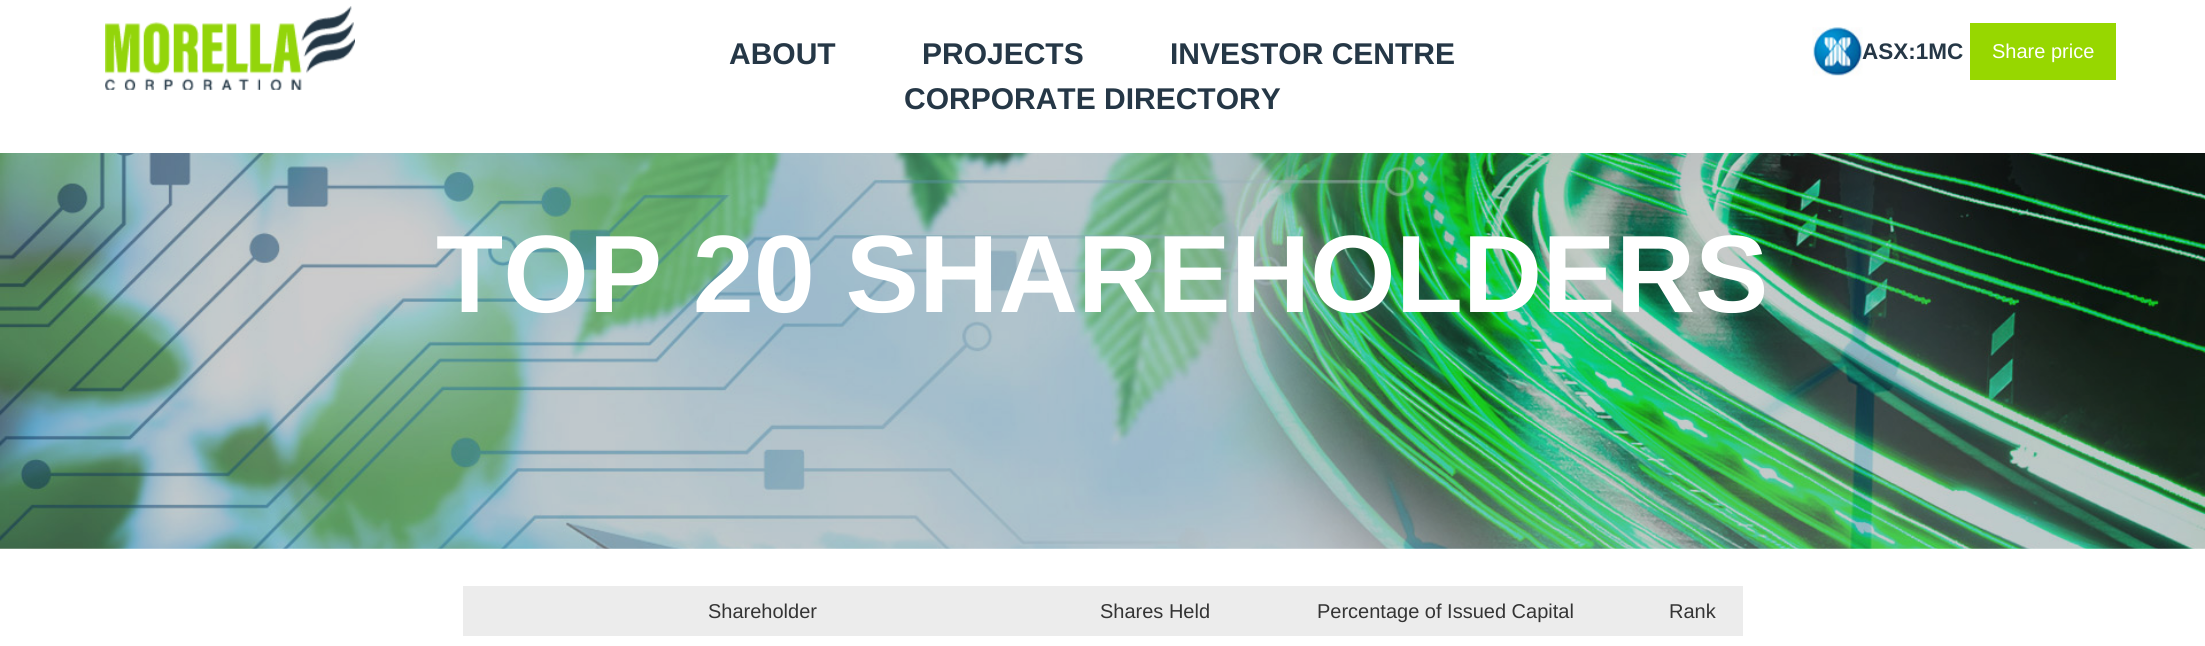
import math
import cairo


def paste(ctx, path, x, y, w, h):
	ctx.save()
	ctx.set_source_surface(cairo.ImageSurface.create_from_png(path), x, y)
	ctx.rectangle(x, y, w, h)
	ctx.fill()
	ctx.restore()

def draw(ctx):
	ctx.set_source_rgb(1, 1, 1)
	ctx.paint()
	paste(ctx, 'media/1.png', 105, 6, 250, 84)
	ctx.select_font_face('Liberation Sans', cairo.FONT_SLANT_NORMAL, cairo.FONT_WEIGHT_BOLD)
	ctx.set_font_size(30)
	ctx.set_source_rgb(0.145, 0.216, 0.275)
	for x, y, s in [
		(729, 64, 'ABOUT'),
		(922, 64, 'PROJECTS'),
		(1170, 64, 'INVESTOR CENTRE'),
		(904, 109, 'CORPORATE DIRECTORY'),
	]:
		ctx.move_to(x, y)
		ctx.show_text(s)
	paste(ctx, 'media/2.png', 1812, 27, 51, 49)
	ctx.set_font_size(22.5)
	ctx.move_to(1862, 59)
	ctx.show_text('ASX:1MC')
	ctx.set_source_rgb(0.592, 0.843, 0)
	ctx.rectangle(1970, 23, 146, 57)
	ctx.fill()
	ctx.select_font_face('Liberation Sans')
	ctx.set_font_size(20)
	ctx.set_source_rgb(1, 1, 1)
	ctx.move_to(1992, 58)
	ctx.show_text('Share price')
	paste(ctx, 'media/3.png', 0, 153, 2205, 396)
	ctx.select_font_face('Liberation Sans', cairo.FONT_SLANT_NORMAL, cairo.FONT_WEIGHT_BOLD)
	ctx.set_font_size(110)
	ctx.move_to(436, 312)
	ctx.show_text('TOP 20 SHAREHOLDERS')
	ctx.set_source_rgb(0.922, 0.922, 0.922)
	ctx.rectangle(463, 586, 1280, 50)
	ctx.fill()
	ctx.select_font_face('Liberation Sans')
	ctx.set_font_size(20)
	ctx.set_source_rgb(0.204, 0.204, 0.204)
	for x, y, s in [
		(708, 618, 'Shareholder'),
		(1100, 618, 'Shares Held'),
		(1317, 618, 'Percentage of Issued Capital'),
		(1669, 618, 'Rank'),
	]:
		ctx.move_to(x, y)
		ctx.show_text(s)


surface = cairo.ImageSurface(cairo.FORMAT_RGB24, 2205, 646)
ctx = cairo.Context(surface)
options = cairo.FontOptions()
options.set_hint_metrics(cairo.HINT_METRICS_OFF)
options.set_hint_style(cairo.HINT_STYLE_NONE)
ctx.set_font_options(options)
ctx.set_miter_limit(4)
draw(ctx)
surface.write_to_png('image.png')
